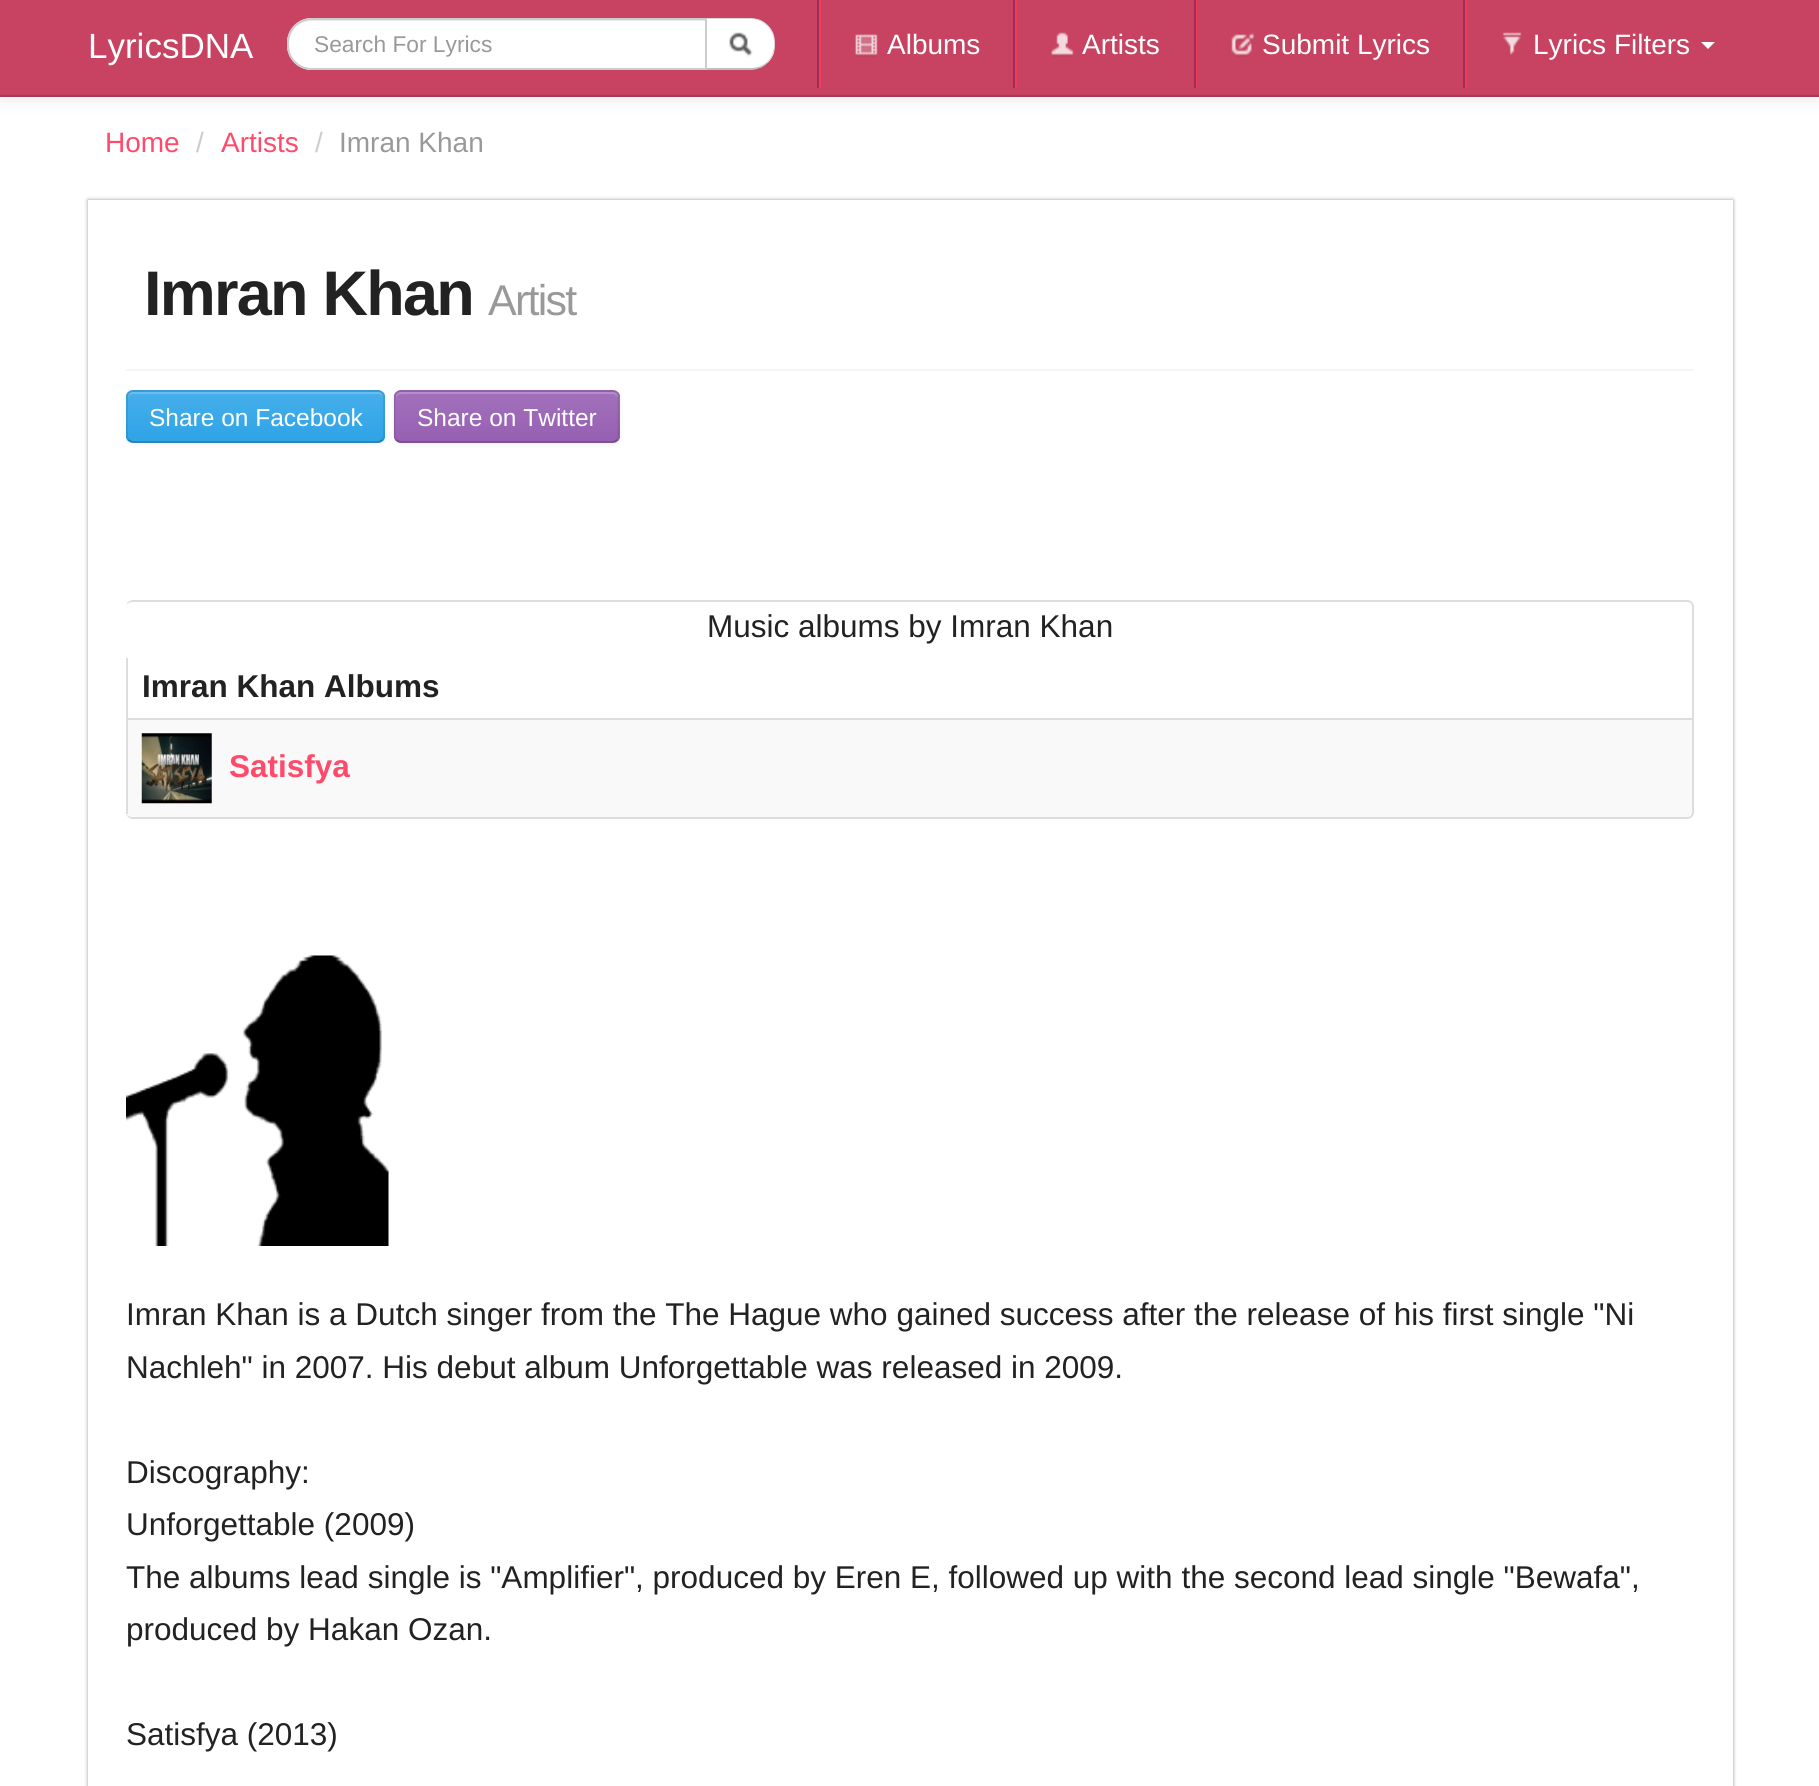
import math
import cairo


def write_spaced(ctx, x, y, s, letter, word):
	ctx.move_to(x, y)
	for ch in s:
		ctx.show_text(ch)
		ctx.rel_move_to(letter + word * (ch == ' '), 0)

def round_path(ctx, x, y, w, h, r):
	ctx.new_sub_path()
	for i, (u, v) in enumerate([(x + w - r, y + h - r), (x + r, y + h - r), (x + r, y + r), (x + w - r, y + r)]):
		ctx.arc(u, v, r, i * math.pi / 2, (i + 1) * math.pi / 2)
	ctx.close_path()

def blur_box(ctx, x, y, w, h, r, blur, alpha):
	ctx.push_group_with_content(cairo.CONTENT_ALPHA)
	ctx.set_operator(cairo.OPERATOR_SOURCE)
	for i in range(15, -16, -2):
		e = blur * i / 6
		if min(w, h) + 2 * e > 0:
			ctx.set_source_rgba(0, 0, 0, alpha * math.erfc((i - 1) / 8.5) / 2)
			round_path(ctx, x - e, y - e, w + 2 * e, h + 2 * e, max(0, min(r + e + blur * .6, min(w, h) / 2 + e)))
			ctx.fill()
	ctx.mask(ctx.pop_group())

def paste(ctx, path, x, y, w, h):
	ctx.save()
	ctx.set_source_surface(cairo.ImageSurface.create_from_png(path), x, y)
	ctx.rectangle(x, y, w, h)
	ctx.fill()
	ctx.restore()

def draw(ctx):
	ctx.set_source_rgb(1, 1, 1)
	ctx.paint()
	ctx.set_source_rgb(0, 0, 0)
	blur_box(ctx, 0, 2, 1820, 96, 0, 9, 0.1)
	ctx.set_source_rgb(0.78, 0.263, 0.38)
	ctx.rectangle(0, 0, 1819, 95)
	ctx.fill()
	ctx.set_source_rgb(0.627, 0.235, 0.345)
	ctx.rectangle(0, 95, 1819, 2)
	ctx.fill()
	ctx.select_font_face('Liberation Sans')
	ctx.set_font_size(35)
	ctx.set_source_rgb(1, 1, 1)
	ctx.move_to(88, 58)
	ctx.show_text('LyricsDNA')
	ctx.new_path()
	ctx.move_to(705, 18)
	ctx.line_to(750, 18)
	ctx.curve_to(764, 18, 775, 29, 775, 43)
	ctx.line_to(775, 45)
	ctx.curve_to(775, 59, 764, 70, 750, 70)
	ctx.line_to(705, 70)
	ctx.close_path()
	ctx.fill()
	ctx.save()
	ctx.new_path()
	ctx.move_to(705, 18)
	ctx.line_to(750, 18)
	ctx.curve_to(764, 18, 775, 29, 775, 43)
	ctx.line_to(775, 45)
	ctx.curve_to(775, 59, 764, 70, 750, 70)
	ctx.line_to(705, 70)
	ctx.close_path()
	ctx.clip()
	ctx.rectangle(707, 19, 67, 49)
	ctx.fill()
	ctx.restore()
	ctx.new_path()
	ctx.move_to(707, 21)
	ctx.line_to(751, 21)
	ctx.curve_to(763, 21, 774, 31, 774, 44)
	ctx.line_to(774, 42)
	ctx.curve_to(774, 29, 764, 19, 751, 19)
	ctx.line_to(707, 19)
	ctx.close_path()
	ctx.fill()
	ctx.set_source_rgba(0, 0, 0, 0.15)
	ctx.new_path()
	ctx.move_to(707, 19)
	ctx.line_to(751, 19)
	ctx.curve_to(757, 19, 763, 22, 767, 26)
	ctx.line_to(768, 25)
	ctx.curve_to(764, 21, 758, 18, 751, 18)
	ctx.line_to(706, 18)
	ctx.close_path()
	ctx.fill()
	ctx.new_path()
	ctx.move_to(768, 25)
	ctx.curve_to(777.5, 34.5, 777.5, 53, 768, 62.5)
	ctx.line_to(767, 61.5)
	ctx.curve_to(776.5, 52.5, 776.5, 35, 767, 25.5)
	ctx.close_path()
	ctx.fill()
	ctx.set_source_rgba(0, 0, 0, 0.25)
	ctx.new_path()
	ctx.move_to(705, 70)
	ctx.line_to(751, 70)
	ctx.curve_to(758, 70, 764, 67, 768, 63)
	ctx.line_to(767, 62)
	ctx.curve_to(763, 66, 757, 68, 751, 68)
	ctx.line_to(707, 68)
	ctx.close_path()
	ctx.fill()
	ctx.set_source_rgb(1, 1, 1)
	ctx.new_path()
	ctx.move_to(312, 18)
	ctx.line_to(707, 18)
	ctx.line_to(707, 70)
	ctx.line_to(312, 70)
	ctx.curve_to(298, 70, 287, 59, 287, 45)
	ctx.line_to(287, 43)
	ctx.curve_to(287, 29, 298, 18, 312, 18)
	ctx.close_path()
	ctx.fill()
	ctx.set_source_rgb(0.925, 0.925, 0.925)
	ctx.new_path()
	ctx.move_to(312, 21)
	ctx.line_to(705, 21)
	ctx.line_to(705, 19)
	ctx.line_to(312, 19)
	ctx.curve_to(299, 19, 289, 29, 289, 42)
	ctx.line_to(289, 44)
	ctx.curve_to(289, 31, 299, 21, 312, 21)
	ctx.close_path()
	ctx.fill()
	ctx.new_path()
	ctx.move_to(312, 19)
	ctx.line_to(706, 19)
	ctx.line_to(706, 69)
	ctx.line_to(312, 69)
	ctx.curve_to(298.5, 69, 288, 58.5, 288, 45)
	ctx.line_to(288, 43)
	ctx.curve_to(288, 29.5, 298.5, 19, 312, 19)
	ctx.close_path()
	ctx.set_source_rgb(0.8, 0.8, 0.8)
	ctx.stroke()
	ctx.set_font_size(22.75)
	ctx.set_source_rgb(0.6, 0.6, 0.6)
	ctx.move_to(314, 52)
	ctx.show_text('Search For Lyrics')
	paste(ctx, 'media/1.png', 729, 32, 24, 25)
	ctx.set_source_rgb(0.941, 0.235, 0.345)
	ctx.rectangle(819, 0, 2, 88)
	ctx.fill()
	ctx.set_source_rgb(0.627, 0.173, 0.345)
	ctx.rectangle(817, 0, 2, 88)
	ctx.fill()
	paste(ctx, 'media/2.png', 855, 34, 23, 23)
	ctx.set_font_size(28)
	ctx.set_source_rgb(1, 1, 1)
	ctx.move_to(887, 54)
	ctx.show_text('Albums')
	ctx.set_source_rgb(0.941, 0.235, 0.345)
	ctx.rectangle(1015, 0, 2, 88)
	ctx.fill()
	ctx.set_source_rgb(0.627, 0.173, 0.345)
	ctx.rectangle(1013, 0, 2, 88)
	ctx.fill()
	paste(ctx, 'media/3.png', 1051, 32, 23, 25)
	ctx.set_source_rgb(1, 1, 1)
	ctx.move_to(1082, 54)
	ctx.show_text('Artists')
	ctx.set_source_rgb(0.941, 0.235, 0.345)
	ctx.rectangle(1196, 0, 1, 88)
	ctx.fill()
	ctx.set_source_rgb(0.627, 0.173, 0.345)
	ctx.rectangle(1194, 0, 2, 88)
	ctx.fill()
	paste(ctx, 'media/4.png', 1231, 32, 24, 25)
	ctx.set_source_rgb(1, 1, 1)
	ctx.move_to(1262, 54)
	ctx.show_text('Submit Lyrics')
	ctx.set_source_rgb(0.941, 0.235, 0.345)
	ctx.rectangle(1465, 0, 2, 88)
	ctx.fill()
	ctx.set_source_rgb(0.627, 0.173, 0.345)
	ctx.rectangle(1463, 0, 2, 88)
	ctx.fill()
	paste(ctx, 'media/5.png', 1502, 32, 20, 24)
	ctx.set_source_rgb(1, 1, 1)
	ctx.move_to(1533, 54)
	ctx.show_text('Lyrics Filters')
	ctx.new_path()
	ctx.move_to(1701, 42)
	ctx.line_to(1715, 42)
	ctx.line_to(1708, 49)
	ctx.close_path()
	ctx.fill()
	ctx.set_source_rgb(1, 0.29, 0.424)
	ctx.move_to(105, 152)
	ctx.show_text('Home')
	ctx.set_source_rgb(0.8, 0.8, 0.8)
	ctx.move_to(196, 152)
	ctx.show_text('/')
	ctx.set_source_rgb(1, 0.29, 0.424)
	ctx.move_to(221, 152)
	ctx.show_text('Artists')
	ctx.set_source_rgb(0.8, 0.8, 0.8)
	ctx.move_to(315, 152)
	ctx.show_text('/')
	ctx.set_source_rgb(0.6, 0.6, 0.6)
	ctx.move_to(339, 152)
	ctx.show_text('Imran Khan')
	ctx.set_source_rgb(0.6, 0.6, 0.6)
	blur_box(ctx, 88, 200, 1645, 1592, 0, 2, 1)
	ctx.set_source_rgb(1, 1, 1)
	ctx.rectangle(88, 200, 1645, 1586)
	ctx.fill()
	ctx.set_source_rgb(0.961, 0.961, 0.961)
	ctx.rectangle(126, 369, 1568, 2)
	ctx.fill()
	ctx.select_font_face('Liberation Sans', cairo.FONT_SLANT_NORMAL, cairo.FONT_WEIGHT_BOLD)
	ctx.set_font_size(63)
	ctx.set_source_rgb(0.133, 0.133, 0.133)
	write_spaced(ctx, 144, 315, 'Imran Khan', -1.75, 0)
	ctx.select_font_face('Liberation Sans')
	ctx.set_font_size(43)
	ctx.set_source_rgb(0.6, 0.6, 0.6)
	write_spaced(ctx, 488, 315, 'Artist', -1.75, 0)
	ctx.set_source_rgb(0, 0, 0)
	blur_box(ctx, 126, 392, 259, 53, 7, 2, 0.05)
	ctx.set_source_rgb(0.239, 0.667, 0.914)
	round_path(ctx, 126, 390, 259, 53, 7)
	ctx.fill()
	ctx.save()
	round_path(ctx, 126, 390, 259, 53, 7)
	ctx.clip()
	gradient = cairo.LinearGradient(256, 392, 256, 441)
	gradient.add_color_stop_rgba(0, 0.275, 0.682, 0.918, 1)
	gradient.add_color_stop_rgba(1, 0.184, 0.643, 0.906, 1)
	ctx.set_source(gradient)
	ctx.rectangle(126, 392, 259, 49)
	ctx.fill()
	ctx.restore()
	ctx.set_source_rgb(0.42, 0.745, 0.933)
	ctx.new_path()
	ctx.move_to(133, 394)
	ctx.line_to(378, 394)
	ctx.curve_to(381, 394, 383, 396, 383, 399)
	ctx.curve_to(383, 396, 382, 392, 378, 392)
	ctx.line_to(133, 392)
	ctx.curve_to(129, 392, 128, 396, 128, 399)
	ctx.curve_to(128, 396, 130, 394, 133, 394)
	ctx.close_path()
	ctx.fill()
	ctx.new_path()
	ctx.move_to(382.5, 440)
	ctx.curve_to(381, 441, 379.5, 442, 378, 442)
	ctx.line_to(133, 442)
	ctx.curve_to(131.5, 442, 130, 441, 128.5, 440)
	ctx.set_source_rgba(0, 0, 0, 0.25)
	ctx.set_line_width(1.8)
	ctx.stroke()
	ctx.new_path()
	ctx.move_to(128.5, 440)
	ctx.curve_to(127.5, 439, 127, 437.5, 127, 436)
	ctx.line_to(127, 397)
	ctx.curve_to(127, 395.5, 127.5, 394, 128.5, 393)
	ctx.curve_to(130, 392, 131.5, 391, 133, 391)
	ctx.line_to(378, 391)
	ctx.curve_to(379.5, 391, 381, 392, 382.5, 393)
	ctx.curve_to(383.5, 394, 384, 395.5, 384, 397)
	ctx.line_to(384, 436)
	ctx.curve_to(384, 437.5, 383.5, 439, 382.5, 440)
	ctx.set_source_rgba(0, 0, 0, 0.1)
	ctx.stroke()
	ctx.set_font_size(24.5)
	ctx.set_source_rgb(1, 1, 1)
	ctx.move_to(149, 426)
	ctx.show_text('Share on Facebook')
	ctx.set_source_rgb(0, 0, 0)
	blur_box(ctx, 394, 392, 226, 53, 7, 2, 0.05)
	ctx.set_source_rgb(0.62, 0.416, 0.722)
	round_path(ctx, 394, 390, 226, 53, 7)
	ctx.fill()
	ctx.save()
	round_path(ctx, 394, 390, 226, 53, 7)
	ctx.clip()
	gradient = cairo.LinearGradient(507, 392, 507, 441)
	gradient.add_color_stop_rgba(0, 0.635, 0.443, 0.733, 1)
	gradient.add_color_stop_rgba(1, 0.592, 0.376, 0.702, 1)
	ctx.set_source(gradient)
	ctx.rectangle(394, 392, 226, 49)
	ctx.fill()
	ctx.restore()
	ctx.set_source_rgb(0.71, 0.553, 0.788)
	ctx.new_path()
	ctx.move_to(401, 394)
	ctx.line_to(612, 394)
	ctx.curve_to(615, 394, 618, 396, 618, 399)
	ctx.line_to(618, 397)
	ctx.curve_to(618, 394, 616, 392, 613, 392)
	ctx.line_to(401, 392)
	ctx.curve_to(398, 392, 396, 394, 396, 397)
	ctx.line_to(396, 399)
	ctx.curve_to(396, 396, 398, 394, 401, 394)
	ctx.close_path()
	ctx.fill()
	ctx.new_path()
	ctx.move_to(617, 440)
	ctx.curve_to(615.5, 441, 614, 442, 612.5, 442)
	ctx.line_to(401, 442)
	ctx.curve_to(399, 442, 397.5, 441, 396.5, 440)
	ctx.set_source_rgba(0, 0, 0, 0.25)
	ctx.stroke()
	ctx.new_path()
	ctx.move_to(396.5, 440)
	ctx.curve_to(395.5, 439, 394.5, 437.5, 394.5, 436)
	ctx.line_to(394.5, 397)
	ctx.curve_to(394.5, 395.5, 395.5, 394, 396.5, 393)
	ctx.curve_to(397.5, 392, 399, 391, 401, 391)
	ctx.line_to(612.5, 391)
	ctx.curve_to(614, 391, 615.5, 392, 617, 393)
	ctx.curve_to(618, 394, 618.5, 395.5, 618.5, 397)
	ctx.line_to(618.5, 436)
	ctx.curve_to(618.5, 437.5, 618, 439, 617, 440)
	ctx.set_source_rgba(0, 0, 0, 0.1)
	ctx.stroke()
	ctx.set_source_rgb(1, 1, 1)
	ctx.move_to(417, 426)
	ctx.show_text('Share on Twitter')
	ctx.set_source_rgb(0.867, 0.867, 0.867)
	ctx.set_fill_rule(cairo.FILL_RULE_EVEN_ODD)
	ctx.new_path()
	ctx.move_to(133, 600)
	ctx.line_to(1687, 600)
	ctx.curve_to(1691, 600, 1694, 603, 1694, 607)
	ctx.line_to(1694, 812)
	ctx.curve_to(1694, 816, 1691, 819, 1687, 819)
	ctx.line_to(133, 819)
	ctx.curve_to(129, 819, 126, 816, 126, 812)
	ctx.line_to(126, 607)
	ctx.curve_to(126, 603, 129, 600, 133, 600)
	ctx.close_path()
	ctx.move_to(133, 602)
	ctx.line_to(1687, 602)
	ctx.curve_to(1690, 602, 1692, 604, 1692, 607)
	ctx.line_to(1692, 812)
	ctx.curve_to(1692, 815, 1690, 817, 1687, 817)
	ctx.line_to(133, 817)
	ctx.curve_to(129, 817, 126, 815, 126, 812)
	ctx.line_to(126, 607)
	ctx.curve_to(126, 604, 129, 602, 133, 602)
	ctx.close_path()
	ctx.fill()
	ctx.set_font_size(31.5)
	ctx.set_source_rgb(0.133, 0.133, 0.133)
	ctx.move_to(707, 637)
	ctx.show_text('Music albums by Imran Khan')
	ctx.set_source_rgb(0.867, 0.867, 0.867)
	ctx.rectangle(126, 658, 2, 60)
	ctx.fill()
	ctx.select_font_face('Liberation Sans', cairo.FONT_SLANT_NORMAL, cairo.FONT_WEIGHT_BOLD)
	ctx.set_source_rgb(0.133, 0.133, 0.133)
	ctx.move_to(142, 697)
	ctx.show_text('Imran Khan Albums')
	ctx.set_source_rgb(0.976, 0.976, 0.976)
	ctx.new_path()
	ctx.move_to(126, 718)
	ctx.line_to(1692, 718)
	ctx.line_to(1692, 810)
	ctx.curve_to(1692, 814, 1689, 817, 1685, 817)
	ctx.line_to(133, 817)
	ctx.curve_to(129, 817, 126, 814, 126, 810)
	ctx.close_path()
	ctx.fill()
	ctx.set_source_rgb(0.867, 0.867, 0.867)
	ctx.rectangle(126, 718, 1566, 2)
	ctx.fill()
	ctx.rectangle(126, 718, 2, 96)
	ctx.fill()
	paste(ctx, 'media/6.png', 141, 733, 71, 71)
	ctx.set_source_rgb(1, 0.29, 0.424)
	ctx.move_to(229, 777)
	ctx.show_text('Satisfya')
	paste(ctx, 'media/7.png', 126, 955, 263, 291)
	ctx.select_font_face('Liberation Sans')
	ctx.set_source_rgb(0.133, 0.133, 0.133)
	for x, y, s in [
		(126, 1325, 'Imran Khan is a Dutch singer from the The Hague who gained success after the release of his first single "Ni'),
		(126, 1378, 'Nachleh" in 2007. His debut album Unforgettable was released in 2009.'),
		(126, 1483, 'Discography:'),
		(126, 1535, 'Unforgettable (2009)'),
		(126, 1588, 'The albums lead single is "Amplifier", produced by Eren E, followed up with the second lead single "Bewafa",'),
		(126, 1640, 'produced by Hakan Ozan.'),
		(126, 1745, 'Satisfya (2013)'),
	]:
		ctx.move_to(x, y)
		ctx.show_text(s)


surface = cairo.ImageSurface(cairo.FORMAT_RGB24, 1819, 1786)
ctx = cairo.Context(surface)
options = cairo.FontOptions()
options.set_hint_metrics(cairo.HINT_METRICS_OFF)
options.set_hint_style(cairo.HINT_STYLE_NONE)
ctx.set_font_options(options)
ctx.set_miter_limit(4)
draw(ctx)
surface.write_to_png('image.png')
